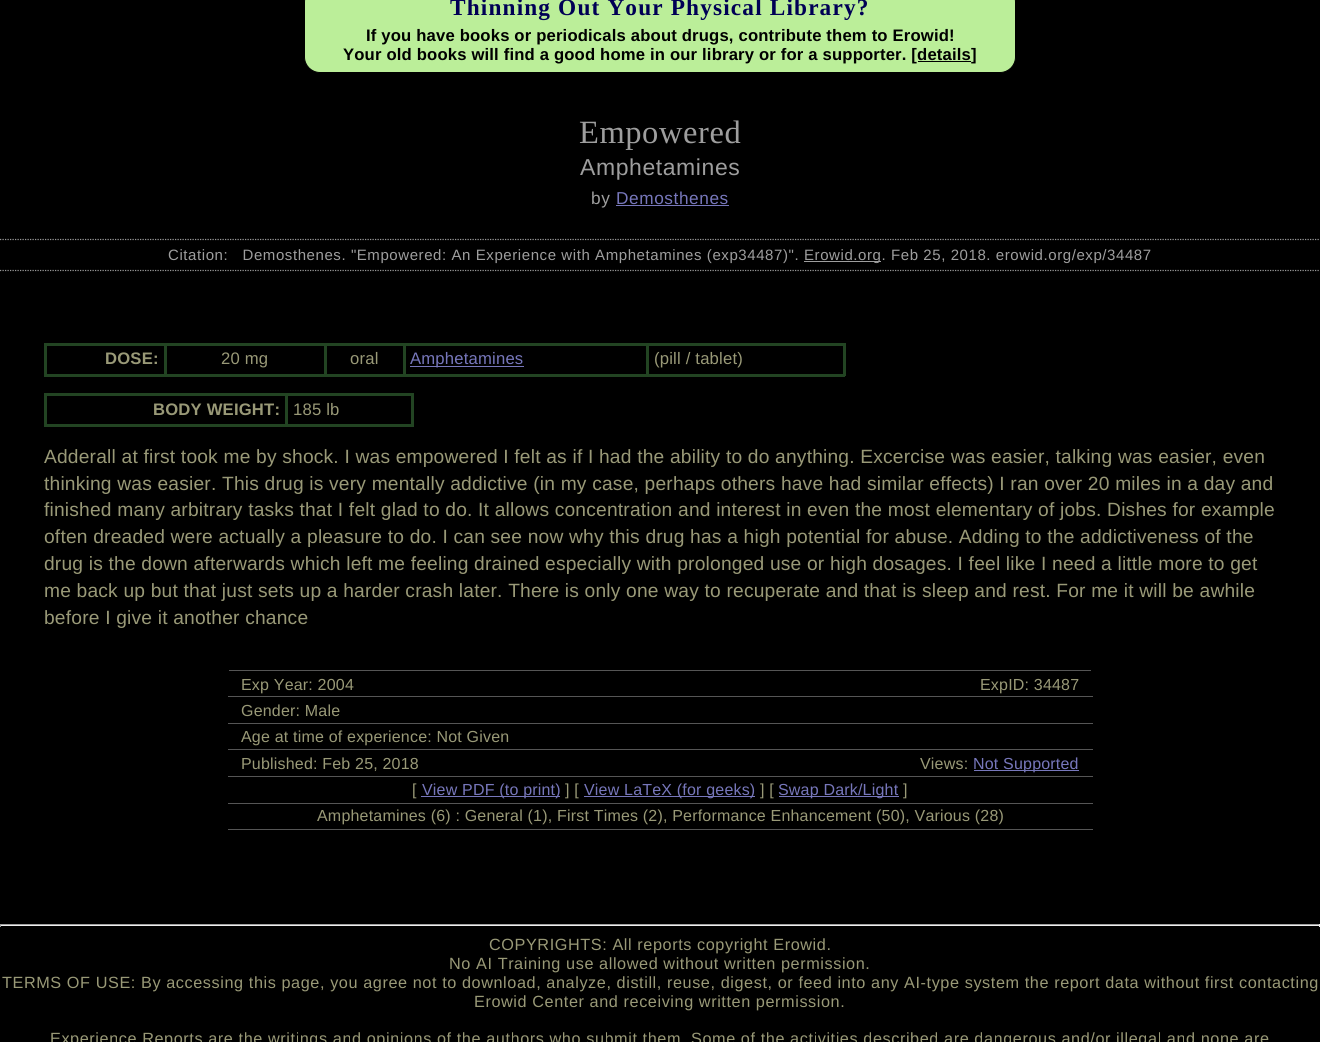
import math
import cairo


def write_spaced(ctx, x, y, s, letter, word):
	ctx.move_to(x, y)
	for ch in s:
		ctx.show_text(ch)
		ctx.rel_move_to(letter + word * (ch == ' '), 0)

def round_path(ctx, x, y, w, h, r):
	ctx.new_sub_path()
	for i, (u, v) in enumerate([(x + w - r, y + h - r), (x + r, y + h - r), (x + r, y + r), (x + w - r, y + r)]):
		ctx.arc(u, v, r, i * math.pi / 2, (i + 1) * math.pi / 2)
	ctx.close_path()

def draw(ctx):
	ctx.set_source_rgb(0, 0, 0)
	ctx.paint()
	ctx.set_source_rgb(0.733, 0.933, 0.6)
	round_path(ctx, 304.5, -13.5, 711, 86, 15.5)
	ctx.fill_preserve()
	ctx.set_source_rgb(0, 0, 0)
	ctx.set_line_width(1)
	ctx.stroke()
	ctx.select_font_face('Liberation Serif', cairo.FONT_SLANT_NORMAL, cairo.FONT_WEIGHT_BOLD)
	ctx.set_font_size(23.3)
	ctx.set_source_rgb(0, 0, 0.333)
	write_spaced(ctx, 450, 15, 'Thinning Out Your Physical Library?', 1.15, 0)
	ctx.select_font_face('Liberation Sans', cairo.FONT_SLANT_NORMAL, cairo.FONT_WEIGHT_BOLD)
	ctx.set_font_size(16.65)
	ctx.set_source_rgb(0, 0, 0)
	write_spaced(ctx, 366, 41, 'If you have books or periodicals about drugs, contribute them to Erowid!', 0.17, 0)
	write_spaced(ctx, 343, 60, 'Your old books will find a good home in our library or for a supporter. [details]', 0.17, 0)
	ctx.rectangle(918, 61, 53, 1)
	ctx.fill()
	ctx.select_font_face('Liberation Serif')
	ctx.set_font_size(32.5)
	ctx.set_source_rgb(0.62, 0.62, 0.62)
	write_spaced(ctx, 579, 143, 'Empowered', 0.58, 0)
	ctx.select_font_face('Liberation Sans')
	ctx.set_font_size(23)
	write_spaced(ctx, 580, 175, 'Amphetamines', 0.58, 0)
	ctx.set_font_size(17.25)
	write_spaced(ctx, 591, 204, 'by', 0.58, 0)
	ctx.set_source_rgb(0.467, 0.467, 0.733)
	write_spaced(ctx, 616, 204, 'Demosthenes', 0.58, 0)
	ctx.rectangle(616, 205, 113, 1)
	ctx.fill()
	ctx.new_path()
	ctx.move_to(0, 239.5)
	ctx.line_to(1320, 239.5)
	ctx.set_source_rgb(0.6, 0.6, 0.6)
	ctx.set_line_width(1.2)
	ctx.set_dash([1.25, 1.25])
	ctx.stroke()
	ctx.new_path()
	ctx.move_to(0, 270.5)
	ctx.line_to(1320, 270.5)
	ctx.stroke()
	ctx.set_font_size(15)
	ctx.set_source_rgb(0.62, 0.62, 0.62)
	write_spaced(ctx, 168, 260, 'Citation:   Demosthenes. "Empowered: An Experience with Amphetamines (exp34487)".', 0.58, 0)
	ctx.rectangle(804, 261, 77, 1)
	ctx.fill()
	write_spaced(ctx, 804, 260, 'Erowid.org. Feb 25, 2018. erowid.org/exp/34487', 0.58, 0)
	ctx.set_source_rgb(0.133, 0.267, 0.133)
	ctx.rectangle(646, 343, 199, 3)
	ctx.rectangle(843, 343, 3, 33)
	ctx.rectangle(646, 374, 199, 3)
	ctx.rectangle(646, 343, 3, 33)
	ctx.rectangle(403, 343, 246, 3)
	ctx.rectangle(403, 374, 246, 3)
	ctx.rectangle(403, 343, 3, 33)
	ctx.rectangle(324, 343, 81, 3)
	ctx.rectangle(324, 374, 81, 3)
	ctx.rectangle(324, 343, 3, 33)
	ctx.rectangle(164, 343, 162, 3)
	ctx.rectangle(164, 374, 162, 3)
	ctx.rectangle(164, 343, 3, 33)
	ctx.rectangle(44, 343, 122, 3)
	ctx.rectangle(44, 374, 122, 3)
	ctx.rectangle(44, 343, 3, 33)
	ctx.fill()
	ctx.select_font_face('Liberation Sans', cairo.FONT_SLANT_NORMAL, cairo.FONT_WEIGHT_BOLD)
	ctx.set_font_size(16.65)
	ctx.set_source_rgb(0.6, 0.6, 0.467)
	write_spaced(ctx, 105, 364, 'DOSE:', 0.19, 0)
	ctx.select_font_face('Liberation Sans')
	write_spaced(ctx, 221, 364, '20 mg', 0.19, 0)
	write_spaced(ctx, 350, 364, 'oral', 0.19, 0)
	ctx.set_source_rgb(0.467, 0.467, 0.733)
	ctx.rectangle(410, 366, 114, 1)
	ctx.fill()
	write_spaced(ctx, 410, 364, 'Amphetamines', 0.19, 0)
	ctx.set_source_rgb(0.6, 0.6, 0.467)
	write_spaced(ctx, 654, 364, '(pill / tablet)', 0.19, 0)
	ctx.set_source_rgb(0.133, 0.267, 0.133)
	ctx.rectangle(285, 393, 129, 3)
	ctx.rectangle(411, 393, 3, 33)
	ctx.rectangle(285, 424, 129, 3)
	ctx.rectangle(285, 393, 3, 33)
	ctx.rectangle(44, 393, 244, 3)
	ctx.rectangle(44, 424, 244, 3)
	ctx.rectangle(44, 393, 3, 33)
	ctx.fill()
	ctx.select_font_face('Liberation Sans', cairo.FONT_SLANT_NORMAL, cairo.FONT_WEIGHT_BOLD)
	ctx.set_source_rgb(0.6, 0.6, 0.467)
	write_spaced(ctx, 153, 415, 'BODY WEIGHT:', 0.19, 0)
	ctx.select_font_face('Liberation Sans')
	write_spaced(ctx, 293, 415, '185 lb', 0.19, 0)
	ctx.set_font_size(19.2)
	for x, y, s in [
		(44, 463, 'Adderall at first took me by shock. I was empowered I felt as if I had the ability to do anything. Excercise was easier, talking was easier, even'),
		(44, 490, 'thinking was easier. This drug is very mentally addictive (in my case, perhaps others have had similar effects) I ran over 20 miles in a day and'),
		(44, 516, 'finished many arbitrary tasks that I felt glad to do. It allows concentration and interest in even the most elementary of jobs. Dishes for example'),
		(44, 543, 'often dreaded were actually a pleasure to do. I can see now why this drug has a high potential for abuse. Adding to the addictiveness of the'),
		(44, 570, 'drug is the down afterwards which left me feeling drained especially with prolonged use or high dosages. I feel like I need a little more to get'),
		(44, 597, 'me back up but that just sets up a harder crash later. There is only one way to recuperate and that is sleep and rest. For me it will be awhile'),
		(44, 624, 'before I give it another chance'),
	]:
		write_spaced(ctx, x, y, s, 0.19, 0)
	ctx.set_source_rgb(0.333, 0.333, 0.333)
	ctx.rectangle(229, 670, 862, 1)
	ctx.fill()
	ctx.set_font_size(16)
	ctx.set_source_rgb(0.6, 0.6, 0.467)
	write_spaced(ctx, 241, 690, 'Exp Year: 2004', 0.19, 0)
	ctx.set_source_rgb(0.333, 0.333, 0.333)
	ctx.rectangle(228, 696, 865, 1)
	ctx.fill()
	ctx.set_source_rgb(0.6, 0.6, 0.467)
	write_spaced(ctx, 980, 690, 'ExpID: 34487', 0.19, 0)
	write_spaced(ctx, 241, 716, 'Gender: Male', 0.19, 0)
	ctx.set_source_rgb(0.333, 0.333, 0.333)
	ctx.rectangle(228, 723, 865, 1)
	ctx.fill()
	ctx.rectangle(228, 749, 865, 1)
	ctx.fill()
	ctx.set_source_rgb(0.6, 0.6, 0.467)
	write_spaced(ctx, 241, 742, 'Age at time of experience: Not Given', 0.19, 0)
	write_spaced(ctx, 241, 769, 'Published: Feb 25, 2018', 0.19, 0)
	ctx.set_source_rgb(0.333, 0.333, 0.333)
	ctx.rectangle(228, 776, 865, 1)
	ctx.fill()
	ctx.set_source_rgb(0.6, 0.6, 0.467)
	write_spaced(ctx, 920, 769, 'Views:', 0.19, 0)
	ctx.set_source_rgb(0.467, 0.467, 0.733)
	ctx.rectangle(974, 770, 105, 1)
	ctx.fill()
	write_spaced(ctx, 973, 769, 'Not Supported', 0.19, 0)
	ctx.set_source_rgb(0.333, 0.333, 0.333)
	ctx.rectangle(228, 803, 865, 1)
	ctx.fill()
	ctx.set_source_rgb(0.6, 0.6, 0.467)
	write_spaced(ctx, 412, 795, '[', 0.19, 0)
	ctx.set_source_rgb(0.467, 0.467, 0.733)
	ctx.rectangle(421, 796, 139, 1)
	ctx.fill()
	write_spaced(ctx, 422, 795, 'View PDF (to print)', 0.19, 0)
	ctx.set_source_rgb(0.6, 0.6, 0.467)
	write_spaced(ctx, 565, 795, '] [', 0.19, 0)
	ctx.set_source_rgb(0.467, 0.467, 0.733)
	ctx.rectangle(584, 796, 171, 1)
	ctx.fill()
	write_spaced(ctx, 584, 795, 'View LaTeX (for geeks)', 0.19, 0)
	ctx.set_source_rgb(0.6, 0.6, 0.467)
	write_spaced(ctx, 760, 795, '] [', 0.19, 0)
	ctx.set_source_rgb(0.467, 0.467, 0.733)
	ctx.rectangle(779, 796, 120, 1)
	ctx.fill()
	write_spaced(ctx, 778, 795, 'Swap Dark/Light', 0.19, 0)
	ctx.set_source_rgb(0.6, 0.6, 0.467)
	write_spaced(ctx, 903, 795, ']', 0.19, 0)
	ctx.set_source_rgb(0.333, 0.333, 0.333)
	ctx.rectangle(228, 829, 865, 1)
	ctx.fill()
	ctx.set_source_rgb(0.6, 0.6, 0.467)
	write_spaced(ctx, 317, 821, 'Amphetamines (6) : General (1), First Times (2), Performance Enhancement (50), Various (28)', 0.19, 0)
	ctx.set_source_rgb(0.624, 0.624, 0.624)
	ctx.rectangle(0, 924, 1320, 1)
	ctx.fill()
	ctx.set_source_rgb(0.933, 0.933, 0.933)
	ctx.rectangle(1319, 924, 1, 3)
	ctx.rectangle(0, 925, 1320, 1)
	ctx.fill()
	ctx.set_source_rgb(0.624, 0.624, 0.624)
	ctx.rectangle(0, 924, 1, 3)
	ctx.fill()
	ctx.set_font_size(16.25)
	ctx.set_source_rgb(0.6, 0.6, 0.467)
	for x, y, s in [
		(489, 950, 'COPYRIGHTS: All reports copyright Erowid.'),
		(449, 969, 'No AI Training use allowed without written permission.'),
		(2, 988, 'TERMS OF USE: By accessing this page, you agree not to download, analyze, distill, reuse, digest, or feed into any AI-type system the report data without first contacting'),
		(474, 1007, 'Erowid Center and receiving written permission.'),
		(50, 1044, 'Experience Reports are the writings and opinions of the authors who submit them'),
		(691, 1044, 'Some of the activities described are dangerous and/or illegal and none are'),
	]:
		write_spaced(ctx, x, y, s, 0.58, 0)


surface = cairo.ImageSurface(cairo.FORMAT_RGB24, 1320, 1042)
ctx = cairo.Context(surface)
options = cairo.FontOptions()
options.set_hint_metrics(cairo.HINT_METRICS_OFF)
options.set_hint_style(cairo.HINT_STYLE_NONE)
ctx.set_font_options(options)
ctx.set_miter_limit(4)
draw(ctx)
surface.write_to_png('image.png')
